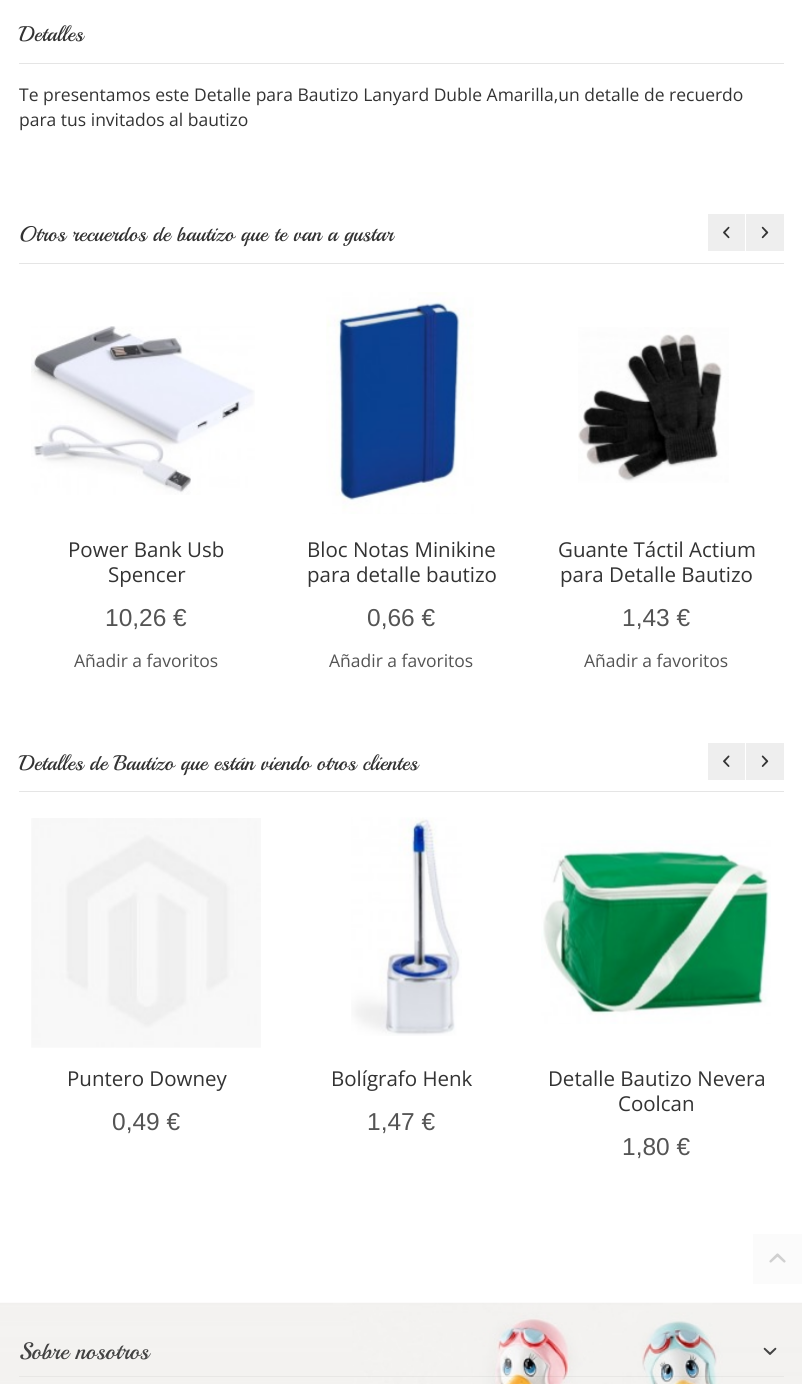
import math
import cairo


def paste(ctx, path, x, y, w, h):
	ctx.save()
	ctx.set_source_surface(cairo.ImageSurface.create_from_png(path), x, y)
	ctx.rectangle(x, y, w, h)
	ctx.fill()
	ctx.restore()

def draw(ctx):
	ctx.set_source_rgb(1, 1, 1)
	ctx.paint()
	ctx.set_source_rgb(0.898, 0.898, 0.898)
	ctx.rectangle(19, 63, 765, 1)
	ctx.fill()
	ctx.select_font_face('Playball')
	ctx.set_font_size(21.25)
	ctx.set_source_rgb(0.2, 0.2, 0.2)
	ctx.move_to(19, 41)
	ctx.show_text('Detalles')
	ctx.select_font_face('Open Sans')
	ctx.set_font_size(17.5)
	ctx.move_to(19, 101)
	ctx.show_text('Te presentamos este Detalle para Bautizo Lanyard Duble Amarilla,un detalle de recuerdo')
	ctx.move_to(19, 126)
	ctx.show_text('para tus invitados al bautizo')
	ctx.set_source_rgb(0.898, 0.898, 0.898)
	ctx.rectangle(19, 263, 765, 1)
	ctx.fill()
	ctx.select_font_face('Playball')
	ctx.set_font_size(21.25)
	ctx.set_source_rgb(0.2, 0.2, 0.2)
	ctx.move_to(19, 241)
	ctx.show_text('Otros recuerdos de bautizo que te van a gustar')
	ctx.set_source_rgb(0.933, 0.933, 0.933)
	ctx.rectangle(708, 214, 37, 37)
	ctx.fill()
	paste(ctx, 'media/1.png', 723, 226, 7, 13)
	ctx.rectangle(746, 214, 38, 37)
	ctx.fill()
	paste(ctx, 'media/2.png', 761, 226, 8, 13)
	paste(ctx, 'media/3.png', 31, 326, 224, 169)
	ctx.select_font_face('Open Sans')
	ctx.set_font_size(20.5)
	ctx.set_source_rgb(0.2, 0.2, 0.2)
	ctx.move_to(68, 557)
	ctx.show_text('Power Bank Usb')
	ctx.move_to(108, 582)
	ctx.show_text('Spencer')
	ctx.select_font_face('Liberation Sans')
	ctx.set_font_size(24.5)
	ctx.set_source_rgb(0.329, 0.329, 0.329)
	ctx.move_to(105, 626)
	ctx.show_text('10,26 €')
	ctx.select_font_face('Open Sans')
	ctx.set_font_size(17.5)
	ctx.move_to(74, 667)
	ctx.show_text('Añadir a favoritos')
	paste(ctx, 'media/4.png', 326, 292, 148, 222)
	ctx.set_font_size(20.5)
	ctx.set_source_rgb(0.2, 0.2, 0.2)
	ctx.move_to(307, 557)
	ctx.show_text('Bloc Notas Minikine')
	ctx.move_to(307, 582)
	ctx.show_text('para detalle bautizo')
	ctx.select_font_face('Liberation Sans')
	ctx.set_font_size(24.5)
	ctx.set_source_rgb(0.329, 0.329, 0.329)
	ctx.move_to(367, 626)
	ctx.show_text('0,66 €')
	ctx.select_font_face('Open Sans')
	ctx.set_font_size(17.5)
	ctx.move_to(329, 667)
	ctx.show_text('Añadir a favoritos')
	paste(ctx, 'media/5.png', 578, 327, 151, 156)
	ctx.set_font_size(20.5)
	ctx.set_source_rgb(0.2, 0.2, 0.2)
	ctx.move_to(558, 557)
	ctx.show_text('Guante Táctil Actium')
	ctx.move_to(560, 582)
	ctx.show_text('para Detalle Bautizo')
	ctx.select_font_face('Liberation Sans')
	ctx.set_font_size(24.5)
	ctx.set_source_rgb(0.329, 0.329, 0.329)
	ctx.move_to(622, 626)
	ctx.show_text('1,43 €')
	ctx.select_font_face('Open Sans')
	ctx.set_font_size(17.5)
	ctx.move_to(584, 667)
	ctx.show_text('Añadir a favoritos')
	ctx.set_source_rgb(0.898, 0.898, 0.898)
	ctx.rectangle(19, 791, 765, 1)
	ctx.fill()
	ctx.select_font_face('Playball')
	ctx.set_font_size(21.25)
	ctx.set_source_rgb(0.2, 0.2, 0.2)
	ctx.move_to(19, 770)
	ctx.show_text('Detalles de Bautizo que están viendo otros clientes')
	ctx.set_source_rgb(0.933, 0.933, 0.933)
	ctx.rectangle(708, 743, 37, 37)
	ctx.fill()
	paste(ctx, 'media/6.png', 723, 755, 7, 12)
	ctx.rectangle(746, 743, 38, 37)
	ctx.fill()
	paste(ctx, 'media/7.png', 761, 755, 8, 12)
	paste(ctx, 'media/8.png', 31, 818, 230, 230)
	ctx.select_font_face('Open Sans')
	ctx.set_font_size(20.5)
	ctx.set_source_rgb(0.2, 0.2, 0.2)
	ctx.move_to(67, 1086)
	ctx.show_text('Puntero Downey')
	ctx.select_font_face('Liberation Sans')
	ctx.set_font_size(24.5)
	ctx.set_source_rgb(0.329, 0.329, 0.329)
	ctx.move_to(112, 1130)
	ctx.show_text('0,49 €')
	paste(ctx, 'media/9.png', 351, 817, 111, 219)
	ctx.select_font_face('Open Sans')
	ctx.set_font_size(20.5)
	ctx.set_source_rgb(0.2, 0.2, 0.2)
	ctx.move_to(331, 1086)
	ctx.show_text('Bolígrafo Henk')
	ctx.select_font_face('Liberation Sans')
	ctx.set_font_size(24.5)
	ctx.set_source_rgb(0.329, 0.329, 0.329)
	ctx.move_to(367, 1130)
	ctx.show_text('1,47 €')
	paste(ctx, 'media/10.png', 541, 840, 230, 184)
	ctx.select_font_face('Open Sans')
	ctx.set_font_size(20.5)
	ctx.set_source_rgb(0.2, 0.2, 0.2)
	ctx.move_to(548, 1086)
	ctx.show_text('Detalle Bautizo Nevera')
	ctx.move_to(618, 1111)
	ctx.show_text('Coolcan')
	ctx.select_font_face('Liberation Sans')
	ctx.set_font_size(24.5)
	ctx.set_source_rgb(0.329, 0.329, 0.329)
	ctx.move_to(622, 1155)
	ctx.show_text('1,80 €')
	paste(ctx, 'media/11.png', 0, 1302, 802, 82)
	ctx.set_source_rgb(0.984, 0.984, 0.984)
	ctx.rectangle(753, 1234, 49, 50)
	ctx.fill()
	paste(ctx, 'media/12.png', 769, 1253, 17, 10)
	ctx.set_source_rgba(0, 0, 0, 0.05)
	ctx.rectangle(19, 1376, 765, 1)
	ctx.fill()
	ctx.select_font_face('Playball')
	ctx.set_font_size(23.5)
	ctx.set_source_rgb(0.263, 0.263, 0.263)
	ctx.move_to(19, 1359)
	ctx.show_text('Sobre nosotros')
	paste(ctx, 'media/13.png', 763, 1347, 14, 8)


surface = cairo.ImageSurface(cairo.FORMAT_RGB24, 802, 1384)
ctx = cairo.Context(surface)
options = cairo.FontOptions()
options.set_hint_metrics(cairo.HINT_METRICS_OFF)
options.set_hint_style(cairo.HINT_STYLE_NONE)
ctx.set_font_options(options)
ctx.set_miter_limit(4)
draw(ctx)
surface.write_to_png('image.png')
